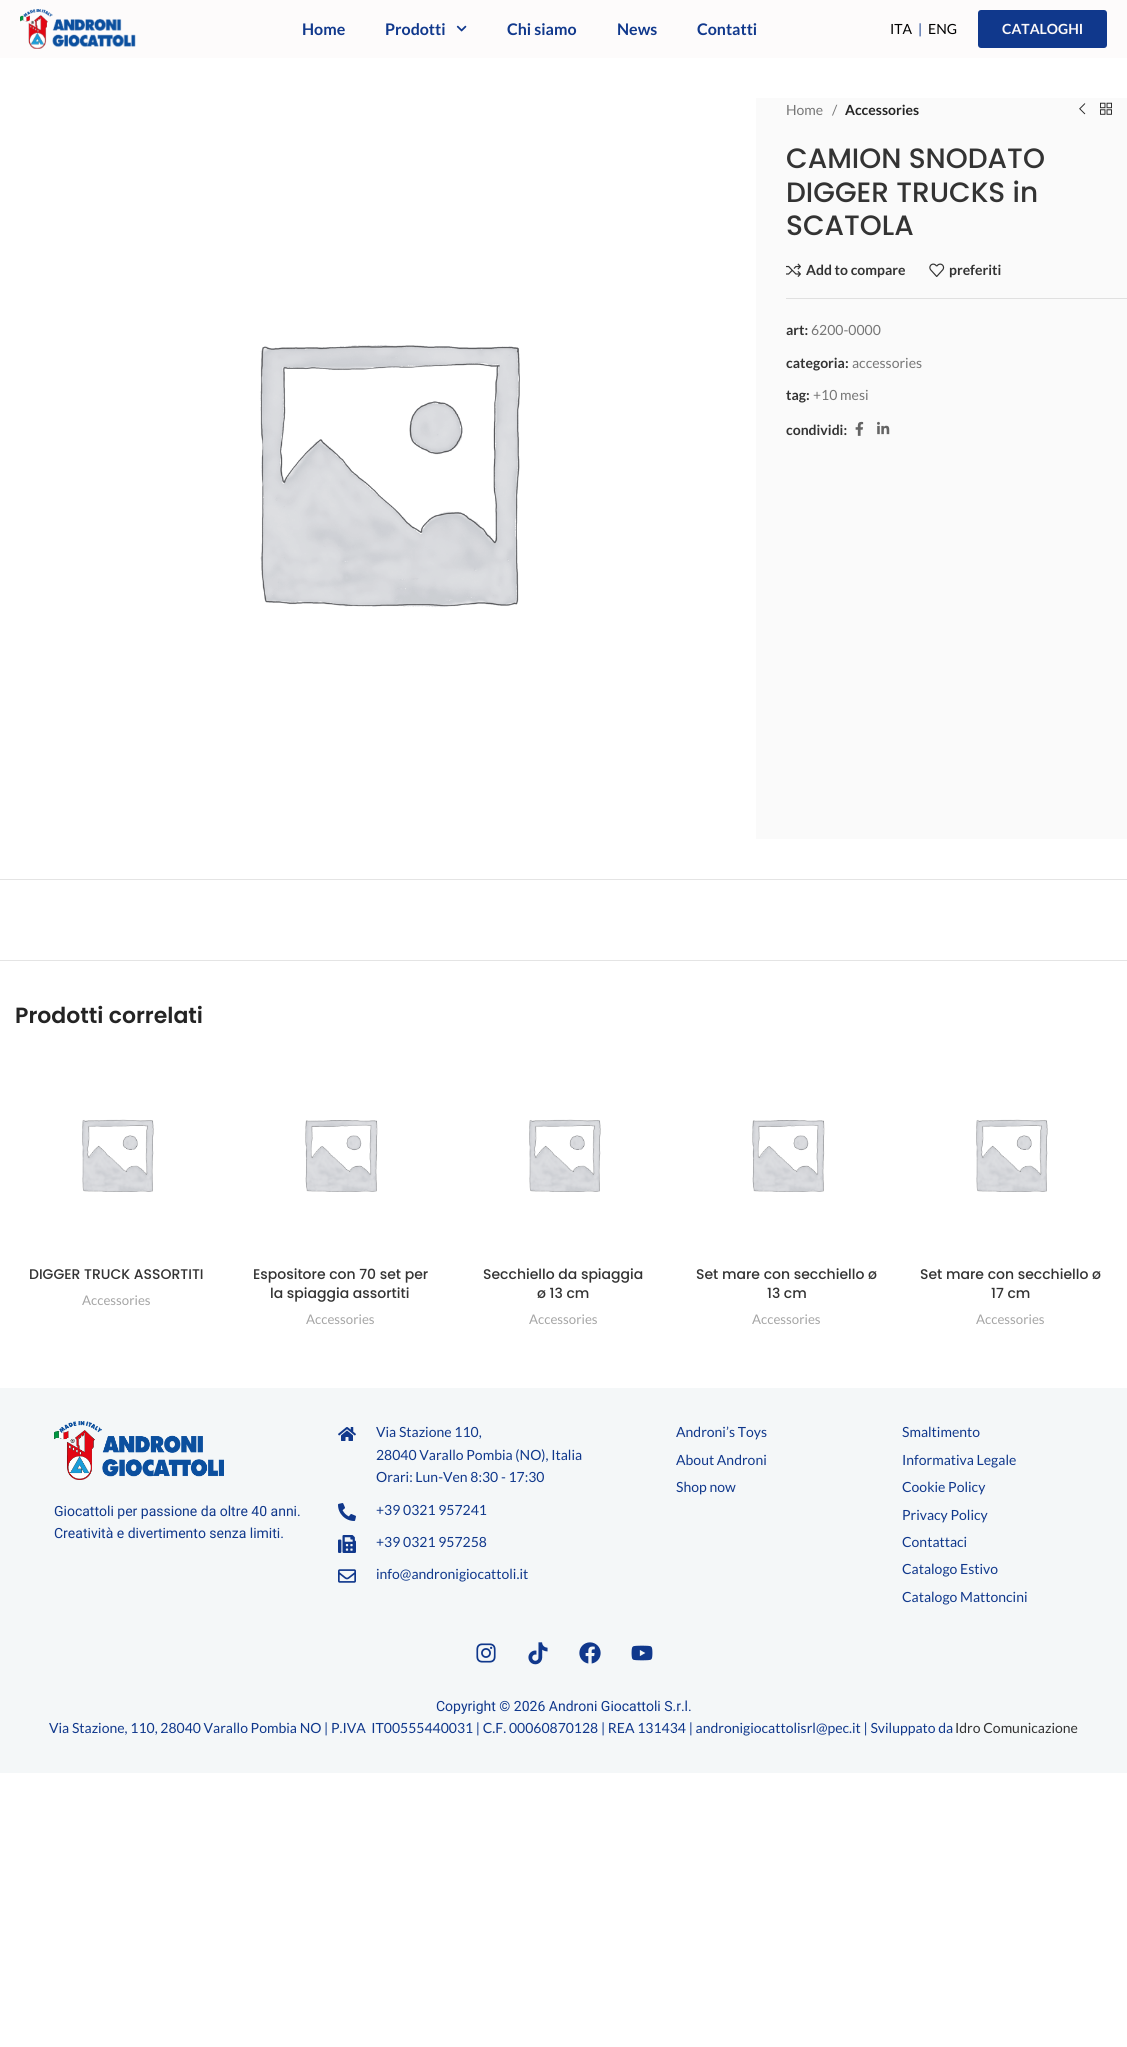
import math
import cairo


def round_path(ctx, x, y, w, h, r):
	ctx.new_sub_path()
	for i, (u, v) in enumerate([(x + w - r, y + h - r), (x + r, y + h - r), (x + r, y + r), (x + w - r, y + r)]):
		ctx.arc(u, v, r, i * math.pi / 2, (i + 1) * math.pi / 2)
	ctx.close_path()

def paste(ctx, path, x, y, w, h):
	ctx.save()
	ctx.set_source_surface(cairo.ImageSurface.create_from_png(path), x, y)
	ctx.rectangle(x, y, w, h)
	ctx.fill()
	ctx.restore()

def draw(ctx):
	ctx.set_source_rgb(1, 1, 1)
	ctx.paint()
	ctx.set_source_rgb(0.992, 0.984, 0.984)
	ctx.rectangle(0, 0, 1127, 58)
	ctx.fill()
	paste(ctx, 'media/1.png', 20, 9, 116, 40)
	ctx.select_font_face('Lato', cairo.FONT_SLANT_NORMAL, cairo.FONT_WEIGHT_BOLD)
	ctx.set_font_size(16)
	ctx.set_source_rgb(0.063, 0.22, 0.549)
	ctx.move_to(302, 35)
	ctx.show_text('Home')
	ctx.move_to(385, 35)
	ctx.show_text('Prodotti')
	paste(ctx, 'media/2.png', 456, 25, 11, 7)
	for x, y, s in [
		(507, 35, 'Chi siamo'),
		(617, 35, 'News'),
		(697, 35, 'Contatti'),
	]:
		ctx.move_to(x, y)
		ctx.show_text(s)
	ctx.select_font_face('Lato')
	ctx.set_font_size(14)
	ctx.set_source_rgb(0, 0, 0)
	ctx.move_to(890, 34)
	ctx.show_text('ITA')
	ctx.set_source_rgb(0.063, 0.22, 0.549)
	ctx.move_to(918, 34)
	ctx.show_text('|')
	ctx.set_source_rgb(0, 0, 0)
	ctx.move_to(928, 34)
	ctx.show_text('ENG')
	ctx.set_source_rgb(0.063, 0.22, 0.549)
	round_path(ctx, 978, 10, 129, 38, 3)
	ctx.fill()
	ctx.select_font_face('Lato', cairo.FONT_SLANT_NORMAL, cairo.FONT_WEIGHT_BOLD)
	ctx.set_source_rgb(0.98, 0.965, 0.969)
	ctx.move_to(1002, 34)
	ctx.show_text('CATALOGHI')
	ctx.set_source_rgb(0.98, 0.98, 0.98)
	ctx.rectangle(756, 98, 371, 741)
	ctx.fill()
	paste(ctx, 'media/3.png', 15, 98, 741, 741)
	ctx.select_font_face('Lato')
	ctx.set_source_rgb(0.463, 0.463, 0.463)
	ctx.move_to(786, 115)
	ctx.show_text('Home')
	ctx.move_to(832, 115)
	ctx.show_text('/')
	ctx.select_font_face('Lato', cairo.FONT_SLANT_NORMAL, cairo.FONT_WEIGHT_BOLD)
	ctx.set_source_rgb(0.141, 0.141, 0.141)
	ctx.move_to(845, 115)
	ctx.show_text('Accessories')
	paste(ctx, 'media/4.png', 1079, 103, 7, 12)
	paste(ctx, 'media/5.png', 1100, 102, 12, 13)
	ctx.select_font_face('Poppins Medium')
	ctx.set_font_size(28)
	ctx.set_source_rgb(0.2, 0.2, 0.2)
	for x, y, s in [
		(786, 168, 'CAMION SNODATO'),
		(786, 202, 'DIGGER TRUCKS in'),
		(786, 235, 'SCATOLA'),
	]:
		ctx.move_to(x, y)
		ctx.show_text(s)
	paste(ctx, 'media/6.png', 786, 263, 15, 14)
	ctx.select_font_face('Lato', cairo.FONT_SLANT_NORMAL, cairo.FONT_WEIGHT_BOLD)
	ctx.set_font_size(14)
	ctx.move_to(806, 275)
	ctx.show_text('Add to compare')
	paste(ctx, 'media/7.png', 929, 263, 16, 14)
	ctx.move_to(949, 275)
	ctx.show_text('preferiti')
	ctx.set_source_rgb(0.878, 0.878, 0.878)
	ctx.rectangle(786, 298, 341, 1)
	ctx.fill()
	ctx.set_source_rgb(0.2, 0.2, 0.2)
	ctx.move_to(786, 335)
	ctx.show_text('art:')
	ctx.select_font_face('Lato')
	ctx.set_source_rgb(0.463, 0.463, 0.463)
	ctx.move_to(811, 335)
	ctx.show_text('6200-0000')
	ctx.select_font_face('Lato', cairo.FONT_SLANT_NORMAL, cairo.FONT_WEIGHT_BOLD)
	ctx.set_source_rgb(0.2, 0.2, 0.2)
	ctx.move_to(786, 368)
	ctx.show_text('categoria:')
	ctx.select_font_face('Lato')
	ctx.set_source_rgb(0.463, 0.463, 0.463)
	ctx.move_to(852, 368)
	ctx.show_text('accessories')
	ctx.select_font_face('Lato', cairo.FONT_SLANT_NORMAL, cairo.FONT_WEIGHT_BOLD)
	ctx.set_source_rgb(0.2, 0.2, 0.2)
	ctx.move_to(786, 400)
	ctx.show_text('tag:')
	ctx.select_font_face('Lato')
	ctx.set_source_rgb(0.463, 0.463, 0.463)
	ctx.move_to(813, 400)
	ctx.show_text('+10 mesi')
	ctx.select_font_face('Lato', cairo.FONT_SLANT_NORMAL, cairo.FONT_WEIGHT_BOLD)
	ctx.set_source_rgb(0.2, 0.2, 0.2)
	ctx.move_to(786, 435)
	ctx.show_text('condividi:')
	paste(ctx, 'media/8.png', 855, 421, 9, 15)
	paste(ctx, 'media/9.png', 877, 421, 13, 14)
	ctx.set_source_rgb(0.894, 0.894, 0.894)
	ctx.rectangle(0, 879, 1127, 1)
	ctx.fill()
	ctx.rectangle(0, 960, 1127, 1)
	ctx.fill()
	ctx.select_font_face('Poppins SemiBold')
	ctx.set_font_size(22)
	ctx.set_source_rgb(0.141, 0.141, 0.141)
	ctx.move_to(15, 1023)
	ctx.show_text('Prodotti correlati')
	paste(ctx, 'media/10.png', 82, 1119, 72, 73)
	ctx.select_font_face('Poppins Medium')
	ctx.set_font_size(14)
	ctx.set_source_rgb(0.2, 0.2, 0.2)
	ctx.move_to(29, 1279)
	ctx.show_text('DIGGER TRUCK ASSORTITI')
	ctx.select_font_face('Lato')
	ctx.set_font_size(13.25)
	ctx.set_source_rgb(0.647, 0.647, 0.647)
	ctx.move_to(82, 1305)
	ctx.show_text('Accessories')
	paste(ctx, 'media/11.png', 305, 1120, 73, 72)
	ctx.select_font_face('Poppins Medium')
	ctx.set_font_size(14)
	ctx.set_source_rgb(0.2, 0.2, 0.2)
	ctx.move_to(253, 1279)
	ctx.show_text('Espositore con 70 set per')
	ctx.move_to(270, 1298)
	ctx.show_text('la spiaggia assortiti')
	ctx.select_font_face('Lato')
	ctx.set_font_size(13.25)
	ctx.set_source_rgb(0.647, 0.647, 0.647)
	ctx.move_to(306, 1324)
	ctx.show_text('Accessories')
	paste(ctx, 'media/10.png', 529, 1119, 72, 73)
	ctx.select_font_face('Poppins Medium')
	ctx.set_font_size(14)
	ctx.set_source_rgb(0.2, 0.2, 0.2)
	ctx.move_to(483, 1279)
	ctx.show_text('Secchiello da spiaggia')
	ctx.move_to(537, 1298)
	ctx.show_text('ø 13 cm')
	ctx.select_font_face('Lato')
	ctx.set_font_size(13.25)
	ctx.set_source_rgb(0.647, 0.647, 0.647)
	ctx.move_to(529, 1324)
	ctx.show_text('Accessories')
	paste(ctx, 'media/11.png', 752, 1120, 73, 72)
	ctx.select_font_face('Poppins Medium')
	ctx.set_font_size(14)
	ctx.set_source_rgb(0.2, 0.2, 0.2)
	ctx.move_to(696, 1279)
	ctx.show_text('Set mare con secchiello ø')
	ctx.move_to(767, 1298)
	ctx.show_text('13 cm')
	ctx.select_font_face('Lato')
	ctx.set_font_size(13.25)
	ctx.set_source_rgb(0.647, 0.647, 0.647)
	ctx.move_to(752, 1324)
	ctx.show_text('Accessories')
	paste(ctx, 'media/10.png', 976, 1119, 72, 73)
	ctx.select_font_face('Poppins Medium')
	ctx.set_font_size(14)
	ctx.set_source_rgb(0.2, 0.2, 0.2)
	ctx.move_to(920, 1279)
	ctx.show_text('Set mare con secchiello ø')
	ctx.move_to(991, 1298)
	ctx.show_text('17 cm')
	ctx.select_font_face('Lato')
	ctx.set_font_size(13.25)
	ctx.set_source_rgb(0.647, 0.647, 0.647)
	ctx.move_to(976, 1324)
	ctx.show_text('Accessories')
	ctx.set_source_rgb(0.957, 0.965, 0.969)
	ctx.rectangle(0, 1388, 1127, 385)
	ctx.fill()
	paste(ctx, 'media/12.png', 54, 1421, 170, 59)
	ctx.select_font_face('Roboto')
	ctx.set_font_size(14)
	ctx.set_source_rgb(0.063, 0.22, 0.549)
	ctx.move_to(54, 1516)
	ctx.show_text('Giocattoli per passione da oltre 40 anni.')
	ctx.move_to(54, 1538)
	ctx.show_text('Creatività e divertimento senza limiti.')
	paste(ctx, 'media/13.png', 338, 1427, 18, 14)
	ctx.select_font_face('Lato')
	for x, y, s in [
		(376, 1437, 'Via Stazione 110,'),
		(376, 1460, '28040 Varallo Pombia (NO), Italia'),
		(376, 1482, 'Orari: Lun-Ven 8:30 - 17:30'),
	]:
		ctx.move_to(x, y)
		ctx.show_text(s)
	paste(ctx, 'media/14.png', 338, 1503, 18, 18)
	ctx.move_to(376, 1515)
	ctx.show_text('+39 0321 957241')
	paste(ctx, 'media/15.png', 338, 1535, 18, 18)
	ctx.move_to(376, 1547)
	ctx.show_text('+39 0321 957258')
	paste(ctx, 'media/16.png', 338, 1569, 18, 14)
	for x, y, s in [
		(376, 1579, 'info@andronigiocattoli.it'),
		(676, 1437, 'Androni’s Toys'),
		(676, 1465, 'About Androni'),
		(676, 1492, 'Shop now'),
		(902, 1437, 'Smaltimento'),
		(902, 1465, 'Informativa Legale'),
		(902, 1492, 'Cookie Policy'),
		(902, 1520, 'Privacy Policy'),
		(902, 1547, 'Contattaci'),
		(902, 1574, 'Catalogo Estivo'),
		(902, 1602, 'Catalogo Mattoncini'),
	]:
		ctx.move_to(x, y)
		ctx.show_text(s)
	paste(ctx, 'media/17.png', 476, 1643, 20, 20)
	paste(ctx, 'media/18.png', 528, 1642, 20, 23)
	paste(ctx, 'media/19.png', 579, 1642, 22, 22)
	paste(ctx, 'media/20.png', 631, 1645, 22, 16)
	ctx.select_font_face('Roboto')
	ctx.move_to(436, 1711)
	ctx.show_text('Copyright © 2026 Androni Giocattoli S.r.l.')
	ctx.select_font_face('Lato')
	ctx.move_to(49, 1733)
	ctx.show_text('Via Stazione, 110, 28040 Varallo Pombia NO | P.IVA  IT00555440031 | C.F. 00060870128 | REA 131434 | andronigiocattolisrl@pec.it | Sviluppato da')
	ctx.set_source_rgb(0.2, 0.2, 0.2)
	ctx.move_to(955, 1733)
	ctx.show_text('Idro Comunicazione')


surface = cairo.ImageSurface(cairo.FORMAT_RGB24, 1127, 2047)
ctx = cairo.Context(surface)
options = cairo.FontOptions()
options.set_hint_metrics(cairo.HINT_METRICS_OFF)
options.set_hint_style(cairo.HINT_STYLE_NONE)
ctx.set_font_options(options)
ctx.set_miter_limit(4)
draw(ctx)
surface.write_to_png('image.png')
